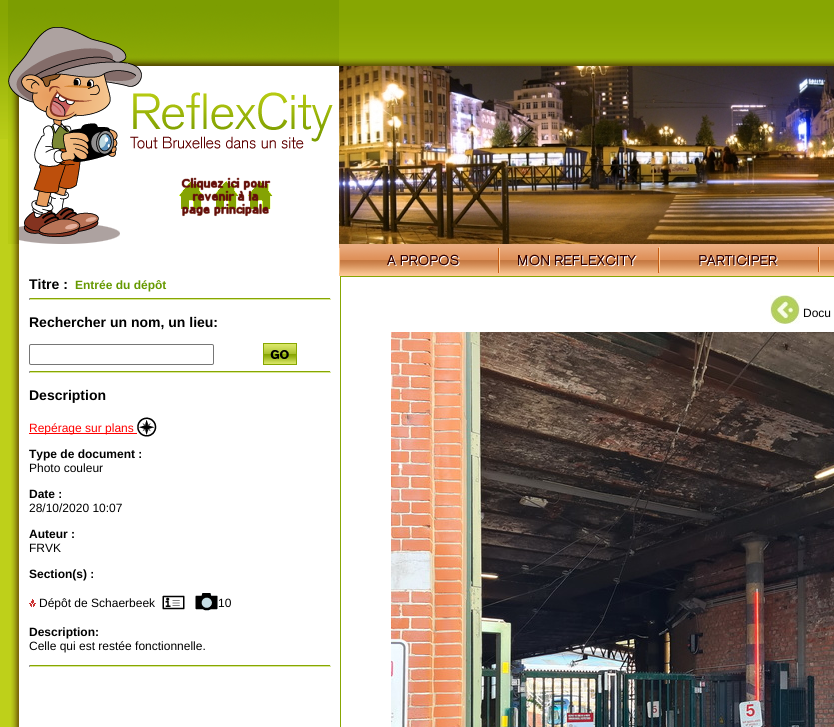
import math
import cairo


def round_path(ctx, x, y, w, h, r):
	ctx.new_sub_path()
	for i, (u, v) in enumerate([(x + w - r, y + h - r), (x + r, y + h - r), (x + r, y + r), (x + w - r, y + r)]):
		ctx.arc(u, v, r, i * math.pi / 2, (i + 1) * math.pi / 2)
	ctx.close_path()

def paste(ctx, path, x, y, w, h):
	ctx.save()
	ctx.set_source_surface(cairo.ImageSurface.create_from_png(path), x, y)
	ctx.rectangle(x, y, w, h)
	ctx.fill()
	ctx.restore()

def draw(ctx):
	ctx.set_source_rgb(0.745, 0.816, 0.102)
	ctx.paint()
	paste(ctx, 'media/1.png', 0, 0, 834, 139)
	paste(ctx, 'media/2.png', 8, 0, 331, 244)
	paste(ctx, 'media/3.png', 339, 58, 495, 8)
	paste(ctx, 'media/4.png', 339, 66, 495, 178)
	paste(ctx, 'media/5.png', 11, 244, 328, 32)
	paste(ctx, 'media/6.png', 339, 244, 160, 32)
	paste(ctx, 'media/7.png', 499, 244, 160, 32)
	paste(ctx, 'media/8.png', 659, 244, 160, 32)
	paste(ctx, 'media/9.png', 819, 244, 15, 32)
	paste(ctx, 'media/10.png', 11, 276, 823, 451)
	ctx.select_font_face('Liberation Sans', cairo.FONT_SLANT_NORMAL, cairo.FONT_WEIGHT_BOLD)
	ctx.set_font_size(14)
	ctx.set_source_rgb(0, 0, 0)
	ctx.move_to(29, 289)
	ctx.show_text('Titre :')
	ctx.set_font_size(12)
	ctx.set_source_rgb(0.4, 0.6, 0)
	ctx.move_to(75, 289)
	ctx.show_text('Entrée du dépôt')
	ctx.set_source_rgb(0.529, 0.651, 0.008)
	ctx.rectangle(29, 298, 302, 1)
	ctx.fill()
	ctx.set_source_rgb(0.933, 0.933, 0.933)
	ctx.rectangle(330, 298, 1, 2)
	ctx.fill()
	ctx.set_source_rgb(0.851, 0.914, 0.592)
	ctx.rectangle(29, 299, 302, 1)
	ctx.fill()
	ctx.set_source_rgb(0.624, 0.624, 0.624)
	ctx.rectangle(29, 298, 1, 2)
	ctx.fill()
	ctx.set_font_size(14)
	ctx.set_source_rgb(0, 0, 0)
	ctx.move_to(29, 327)
	ctx.show_text('Rechercher un nom, un lieu:')
	round_path(ctx, 29.5, 344.5, 184, 20, 1.5)
	ctx.set_source_rgb(0.463, 0.463, 0.463)
	ctx.set_line_width(1)
	ctx.stroke()
	paste(ctx, 'media/11.png', 263, 343, 34, 22)
	ctx.set_source_rgb(0.529, 0.651, 0.008)
	ctx.rectangle(29, 371, 302, 1)
	ctx.fill()
	ctx.set_source_rgb(0.933, 0.933, 0.933)
	ctx.rectangle(330, 371, 1, 2)
	ctx.fill()
	ctx.set_source_rgb(0.851, 0.914, 0.592)
	ctx.rectangle(29, 372, 302, 1)
	ctx.fill()
	ctx.set_source_rgb(0.624, 0.624, 0.624)
	ctx.rectangle(29, 371, 1, 2)
	ctx.fill()
	ctx.set_source_rgb(0, 0, 0)
	ctx.move_to(29, 400)
	ctx.show_text('Description')
	ctx.set_source_rgb(1, 0, 0)
	ctx.rectangle(29, 433, 108, 1)
	ctx.fill()
	ctx.select_font_face('Liberation Sans')
	ctx.set_font_size(12)
	ctx.move_to(29, 432)
	ctx.show_text('Repérage sur plans')
	paste(ctx, 'media/12.png', 137, 417, 20, 20)
	ctx.select_font_face('Liberation Sans', cairo.FONT_SLANT_NORMAL, cairo.FONT_WEIGHT_BOLD)
	ctx.set_source_rgb(0, 0, 0)
	ctx.move_to(29, 458)
	ctx.show_text('Type de document :')
	ctx.select_font_face('Liberation Sans')
	ctx.move_to(29, 472)
	ctx.show_text('Photo couleur')
	ctx.select_font_face('Liberation Sans', cairo.FONT_SLANT_NORMAL, cairo.FONT_WEIGHT_BOLD)
	ctx.move_to(29, 498)
	ctx.show_text('Date :')
	ctx.select_font_face('Liberation Sans')
	ctx.move_to(29, 512)
	ctx.show_text('28/10/2020 10:07')
	ctx.select_font_face('Liberation Sans', cairo.FONT_SLANT_NORMAL, cairo.FONT_WEIGHT_BOLD)
	ctx.move_to(29, 538)
	ctx.show_text('Auteur :')
	ctx.select_font_face('Liberation Sans')
	ctx.move_to(29, 552)
	ctx.show_text('FRVK')
	ctx.select_font_face('Liberation Sans', cairo.FONT_SLANT_NORMAL, cairo.FONT_WEIGHT_BOLD)
	ctx.move_to(29, 578)
	ctx.show_text('Section(s) :')
	paste(ctx, 'media/13.png', 29, 599, 7, 8)
	ctx.select_font_face('Liberation Sans')
	ctx.move_to(39, 607)
	ctx.show_text('Dépôt de Schaerbeek')
	paste(ctx, 'media/14.png', 162, 595, 23, 15)
	paste(ctx, 'media/15.png', 195, 593, 23, 18)
	ctx.move_to(218, 607)
	ctx.show_text('10')
	ctx.select_font_face('Liberation Sans', cairo.FONT_SLANT_NORMAL, cairo.FONT_WEIGHT_BOLD)
	ctx.move_to(29, 636)
	ctx.show_text('Description:')
	ctx.select_font_face('Liberation Sans')
	ctx.move_to(29, 650)
	ctx.show_text('Celle qui est restée fonctionnelle.')
	ctx.set_source_rgb(0.529, 0.651, 0.008)
	ctx.rectangle(29, 665, 302, 1)
	ctx.fill()
	ctx.set_source_rgb(0.933, 0.933, 0.933)
	ctx.rectangle(330, 665, 1, 2)
	ctx.fill()
	ctx.set_source_rgb(0.851, 0.914, 0.592)
	ctx.rectangle(29, 666, 302, 1)
	ctx.fill()
	ctx.set_source_rgb(0.624, 0.624, 0.624)
	ctx.rectangle(29, 665, 1, 2)
	ctx.fill()
	ctx.rectangle(340.5, 276.5, 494, 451)
	ctx.set_source_rgb(0.529, 0.651, 0.008)
	ctx.stroke()
	paste(ctx, 'media/16.png', 770, 295, 30, 29)
	ctx.set_source_rgb(0, 0, 0)
	ctx.move_to(803, 317)
	ctx.show_text('Docu')
	paste(ctx, 'media/17.png', 391, 332, 443, 395)


surface = cairo.ImageSurface(cairo.FORMAT_RGB24, 834, 727)
ctx = cairo.Context(surface)
options = cairo.FontOptions()
options.set_hint_metrics(cairo.HINT_METRICS_OFF)
options.set_hint_style(cairo.HINT_STYLE_NONE)
ctx.set_font_options(options)
ctx.set_miter_limit(4)
draw(ctx)
surface.write_to_png('image.png')
